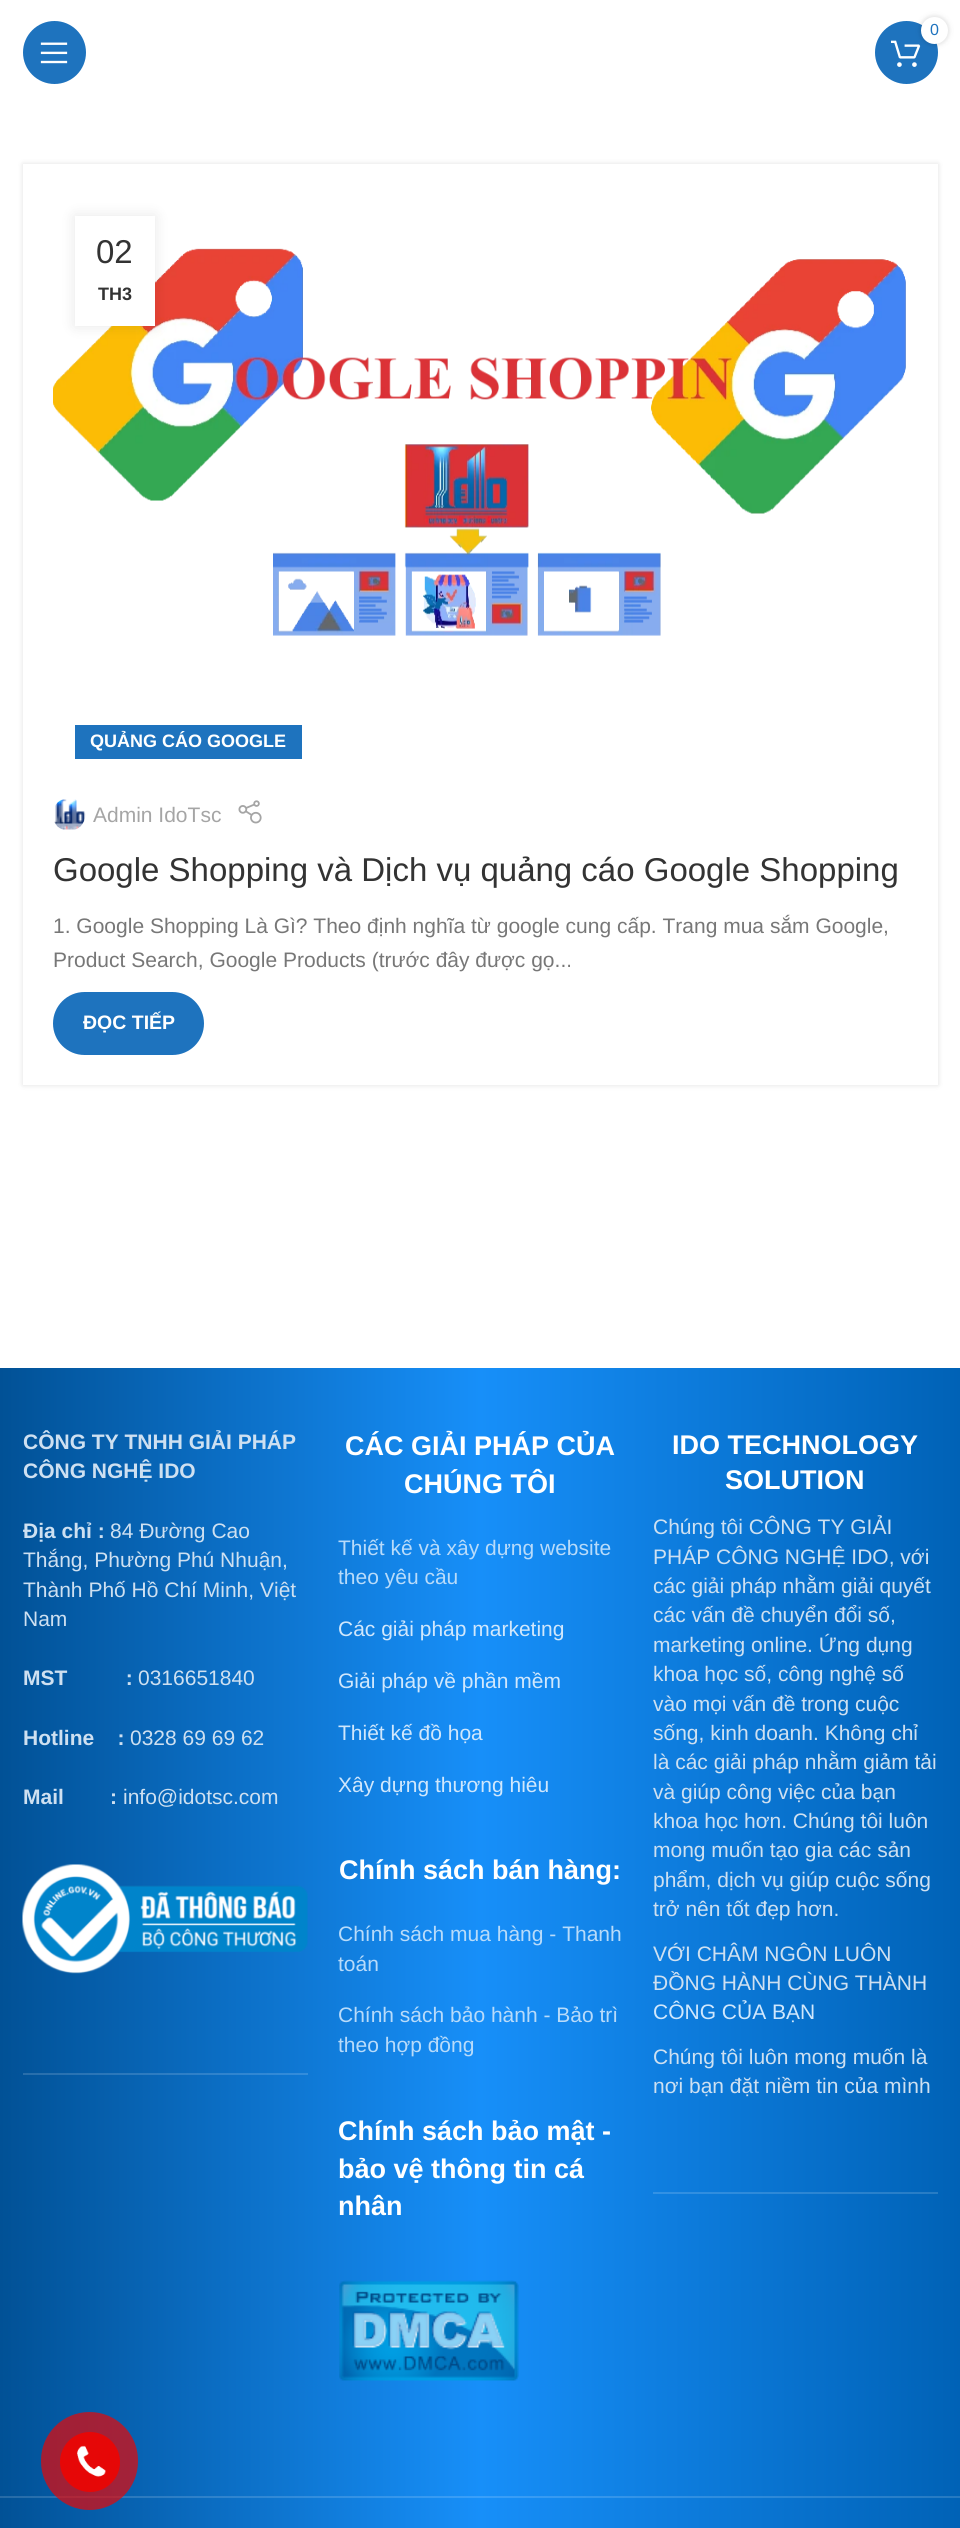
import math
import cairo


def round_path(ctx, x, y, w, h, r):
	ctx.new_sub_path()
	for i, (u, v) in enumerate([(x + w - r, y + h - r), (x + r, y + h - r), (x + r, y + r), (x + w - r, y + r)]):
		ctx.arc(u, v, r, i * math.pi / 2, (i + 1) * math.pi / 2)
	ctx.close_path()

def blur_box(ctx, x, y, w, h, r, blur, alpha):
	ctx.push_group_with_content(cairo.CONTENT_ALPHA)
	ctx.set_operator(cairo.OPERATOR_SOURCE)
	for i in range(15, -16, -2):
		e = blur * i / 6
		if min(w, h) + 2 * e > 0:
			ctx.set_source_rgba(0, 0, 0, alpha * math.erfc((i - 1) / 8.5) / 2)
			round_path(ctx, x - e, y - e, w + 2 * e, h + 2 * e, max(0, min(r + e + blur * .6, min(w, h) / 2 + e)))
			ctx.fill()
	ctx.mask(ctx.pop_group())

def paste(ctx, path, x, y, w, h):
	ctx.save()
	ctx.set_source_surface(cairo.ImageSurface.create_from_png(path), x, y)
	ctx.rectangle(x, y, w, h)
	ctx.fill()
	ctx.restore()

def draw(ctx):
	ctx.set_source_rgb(1, 1, 1)
	ctx.paint()
	ctx.set_source_rgb(0.118, 0.451, 0.745)
	ctx.arc(54.5, 52.5, 31.5, 0, 2 * math.pi)
	ctx.fill()
	paste(ctx, 'media/1.png', 40, 42, 28, 22)
	ctx.arc(906.5, 52.5, 31.5, 0, 2 * math.pi)
	ctx.fill()
	paste(ctx, 'media/2.png', 891, 40, 30, 27)
	ctx.set_source_rgb(0, 0, 0)
	blur_box(ctx, 921, 17, 27, 27, 13.5, 3, 0.17)
	ctx.set_source_rgb(1, 1, 1)
	ctx.arc(934.5, 30.5, 13.5, 0, 2 * math.pi)
	ctx.fill()
	ctx.select_font_face('Liberation Sans')
	ctx.set_font_size(16)
	ctx.set_source_rgb(0.118, 0.451, 0.745)
	ctx.move_to(930, 35)
	ctx.show_text('0')
	ctx.set_source_rgb(0, 0, 0)
	blur_box(ctx, 23, 164, 915, 921, 0, 3, 0.12)
	ctx.set_source_rgb(1, 1, 1)
	ctx.rectangle(23, 164, 915, 921)
	ctx.fill()
	paste(ctx, 'media/3.png', 53, 248, 853, 388)
	ctx.set_source_rgb(0, 0, 0)
	blur_box(ctx, 75, 216, 80, 110, 0, 7, 0.1)
	ctx.set_source_rgb(1, 1, 1)
	ctx.rectangle(75, 216, 80, 110)
	ctx.fill()
	ctx.set_font_size(33)
	ctx.set_source_rgb(0.2, 0.2, 0.2)
	ctx.move_to(96, 263)
	ctx.show_text('02')
	ctx.select_font_face('Liberation Sans', cairo.FONT_SLANT_NORMAL, cairo.FONT_WEIGHT_BOLD)
	ctx.set_font_size(18)
	ctx.move_to(98, 300)
	ctx.show_text('TH3')
	ctx.set_source_rgb(0.118, 0.451, 0.745)
	ctx.rectangle(75, 725, 227, 34)
	ctx.fill()
	ctx.set_source_rgb(1, 1, 1)
	ctx.move_to(90, 747)
	ctx.show_text('QUẢNG CÁO GOOGLE')
	paste(ctx, 'media/4.png', 54, 799, 32, 31)
	ctx.select_font_face('Liberation Sans')
	ctx.set_font_size(21)
	ctx.set_source_rgb(0.647, 0.647, 0.647)
	ctx.move_to(93, 822)
	ctx.show_text('Admin IdoTsc')
	paste(ctx, 'media/5.png', 238, 800, 24, 24)
	ctx.set_font_size(33)
	ctx.set_source_rgb(0.2, 0.2, 0.2)
	ctx.move_to(53, 881)
	ctx.show_text('Google Shopping và Dịch vụ quảng cáo Google Shopping')
	ctx.set_font_size(21)
	ctx.set_source_rgb(0.467, 0.467, 0.467)
	ctx.move_to(53, 933)
	ctx.show_text('1. Google Shopping Là Gì? Theo định nghĩa từ google cung cấp. Trang mua sắm Google,')
	ctx.move_to(53, 967)
	ctx.show_text('Product Search, Google Products (trước đây được gọ...')
	ctx.set_source_rgb(0.118, 0.451, 0.745)
	round_path(ctx, 53, 992, 151, 63, 31.5)
	ctx.fill()
	ctx.select_font_face('Liberation Sans', cairo.FONT_SLANT_NORMAL, cairo.FONT_WEIGHT_BOLD)
	ctx.set_font_size(19.5)
	ctx.set_source_rgb(1, 1, 1)
	ctx.move_to(83, 1029)
	ctx.show_text('ĐỌC TIẾP')
	gradient = cairo.LinearGradient(0, 2012, 960, 2012)
	gradient.add_color_stop_rgba(0, 0.004, 0.318, 0.588, 1)
	gradient.add_color_stop_rgba(0.5, 0.09, 0.561, 0.976, 1)
	gradient.add_color_stop_rgba(1, 0, 0.384, 0.714, 1)
	ctx.set_source(gradient)
	ctx.rectangle(0, 1368, 960, 1160)
	ctx.fill()
	gradient = cairo.LinearGradient(0, 2012, 960, 2012)
	gradient.add_color_stop_rgba(0, 0.153, 0.42, 0.651, 1)
	gradient.add_color_stop_rgba(0.5, 0.227, 0.627, 0.98, 1)
	gradient.add_color_stop_rgba(1, 0.149, 0.478, 0.757, 1)
	ctx.set_source(gradient)
	ctx.rectangle(653, 2192, 285, 2)
	ctx.fill()
	ctx.rectangle(23, 2073, 285, 2)
	ctx.fill()
	ctx.rectangle(0, 2496, 960, 2)
	ctx.fill()
	ctx.set_font_size(21)
	ctx.set_source_rgb(0.808, 0.878, 0.945)
	for x, y, s in [
		(23, 1449, 'CÔNG TY TNHH GIẢI PHÁP'),
		(23, 1478, 'CÔNG NGHỆ IDO'),
		(23, 1538, 'Địa chỉ :'),
	]:
		ctx.move_to(x, y)
		ctx.show_text(s)
	ctx.select_font_face('Liberation Sans')
	for x, y, s in [
		(110, 1538, '84 Đường Cao'),
		(23, 1567, 'Thắng, Phường Phú Nhuận,'),
		(23, 1597, 'Thành Phố Hồ Chí Minh, Việt'),
		(23, 1626, 'Nam'),
	]:
		ctx.move_to(x, y)
		ctx.show_text(s)
	ctx.select_font_face('Liberation Sans', cairo.FONT_SLANT_NORMAL, cairo.FONT_WEIGHT_BOLD)
	ctx.move_to(23, 1685)
	ctx.show_text('MST          :')
	ctx.select_font_face('Liberation Sans')
	ctx.move_to(138, 1685)
	ctx.show_text('0316651840')
	ctx.select_font_face('Liberation Sans', cairo.FONT_SLANT_NORMAL, cairo.FONT_WEIGHT_BOLD)
	ctx.move_to(23, 1745)
	ctx.show_text('Hotline    :')
	ctx.select_font_face('Liberation Sans')
	ctx.move_to(130, 1745)
	ctx.show_text('0328 69 69 62')
	ctx.select_font_face('Liberation Sans', cairo.FONT_SLANT_NORMAL, cairo.FONT_WEIGHT_BOLD)
	ctx.move_to(23, 1804)
	ctx.show_text('Mail')
	ctx.move_to(110, 1804)
	ctx.show_text(':')
	ctx.select_font_face('Liberation Sans')
	ctx.move_to(123, 1804)
	ctx.show_text('info@idotsc.com')
	paste(ctx, 'media/6.png', 22, 1864, 286, 110)
	ctx.set_source_rgba(0.902, 0.031, 0.031, 0.7)
	round_path(ctx, 41, 2412, 97, 98, 48.5)
	ctx.fill()
	ctx.set_source_rgb(0.902, 0.031, 0.031)
	ctx.arc(90, 2462, 30, 0, 2 * math.pi)
	ctx.fill()
	paste(ctx, 'media/7.png', 77, 2445, 29, 32)
	ctx.select_font_face('Liberation Sans', cairo.FONT_SLANT_NORMAL, cairo.FONT_WEIGHT_BOLD)
	ctx.set_font_size(27)
	ctx.set_source_rgb(1, 1, 1)
	ctx.move_to(345, 1455)
	ctx.show_text('CÁC GIẢI PHÁP CỦA')
	ctx.move_to(404, 1493)
	ctx.show_text('CHÚNG TÔI')
	ctx.select_font_face('Liberation Sans')
	ctx.set_font_size(21)
	ctx.set_source_rgb(0.722, 0.859, 0.98)
	ctx.move_to(338, 1555)
	ctx.show_text('Thiết kế và xây dựng website')
	ctx.move_to(338, 1584)
	ctx.show_text('theo yêu cầu')
	ctx.set_source_rgb(0.816, 0.906, 0.988)
	for x, y, s in [
		(338, 1636, 'Các giải pháp marketing'),
		(338, 1688, 'Giải pháp về phần mềm'),
		(338, 1740, 'Thiết kế đồ họa'),
		(338, 1792, 'Xây dựng thương hiêu'),
	]:
		ctx.move_to(x, y)
		ctx.show_text(s)
	ctx.select_font_face('Liberation Sans', cairo.FONT_SLANT_NORMAL, cairo.FONT_WEIGHT_BOLD)
	ctx.set_font_size(27)
	ctx.set_source_rgb(1, 1, 1)
	ctx.move_to(339, 1879)
	ctx.show_text('Chính sách bán hàng:')
	ctx.select_font_face('Liberation Sans')
	ctx.set_font_size(21)
	ctx.set_source_rgb(0.722, 0.859, 0.98)
	for x, y, s in [
		(338, 1941, 'Chính sách mua hàng - Thanh'),
		(338, 1971, 'toán'),
		(338, 2022, 'Chính sách bảo hành - Bảo trì'),
		(338, 2052, 'theo hợp đồng'),
	]:
		ctx.move_to(x, y)
		ctx.show_text(s)
	ctx.select_font_face('Liberation Sans', cairo.FONT_SLANT_NORMAL, cairo.FONT_WEIGHT_BOLD)
	ctx.set_font_size(27)
	ctx.set_source_rgb(1, 1, 1)
	for x, y, s in [
		(338, 2140, 'Chính sách bảo mật -'),
		(338, 2178, 'bảo vệ thông tin cá'),
		(338, 2215, 'nhân'),
	]:
		ctx.move_to(x, y)
		ctx.show_text(s)
	paste(ctx, 'media/8.png', 339, 2280, 180, 101)
	ctx.move_to(672, 1454)
	ctx.show_text('IDO TECHNOLOGY')
	ctx.move_to(725, 1489)
	ctx.show_text('SOLUTION')
	ctx.select_font_face('Liberation Sans')
	ctx.set_font_size(21)
	ctx.set_source_rgb(0.808, 0.878, 0.945)
	for x, y, s in [
		(653, 1534, 'Chúng tôi CÔNG TY GIẢI'),
		(653, 1564, 'PHÁP CÔNG NGHỆ IDO, với'),
		(653, 1593, 'các giải pháp nhằm giải quyết'),
		(653, 1622, 'các vấn đề chuyển đổi số,'),
		(653, 1652, 'marketing online. Ứng dụng'),
		(653, 1681, 'khoa học số, công nghệ số'),
		(653, 1711, 'vào mọi vấn đề trong cuộc'),
		(653, 1740, 'sống, kinh doanh. Không chỉ'),
		(653, 1769, 'là các giải pháp nhằm giảm tải'),
		(653, 1799, 'và giúp công việc của bạn'),
		(653, 1828, 'khoa học hơn. Chúng tôi luôn'),
		(653, 1857, 'mong muốn tạo gia các sản'),
		(653, 1887, 'phẩm, dịch vụ giúp cuộc sống'),
		(653, 1916, 'trở nên tốt đẹp hơn.'),
		(653, 1961, 'VỚI CHÂM NGÔN LUÔN'),
		(653, 1990, 'ĐỒNG HÀNH CÙNG THÀNH'),
	]:
		ctx.move_to(x, y)
		ctx.show_text(s)
	ctx.set_source_rgb(0.816, 0.906, 0.988)
	ctx.move_to(653, 2019)
	ctx.show_text('CÔNG CỦA BẠN')
	ctx.set_source_rgb(0.808, 0.878, 0.945)
	ctx.move_to(653, 2064)
	ctx.show_text('Chúng tôi luôn mong muốn là')
	ctx.move_to(653, 2093)
	ctx.show_text('nơi bạn đặt niềm tin của mình')


surface = cairo.ImageSurface(cairo.FORMAT_RGB24, 960, 2528)
ctx = cairo.Context(surface)
options = cairo.FontOptions()
options.set_hint_metrics(cairo.HINT_METRICS_OFF)
options.set_hint_style(cairo.HINT_STYLE_NONE)
ctx.set_font_options(options)
ctx.set_miter_limit(4)
draw(ctx)
surface.write_to_png('image.png')
